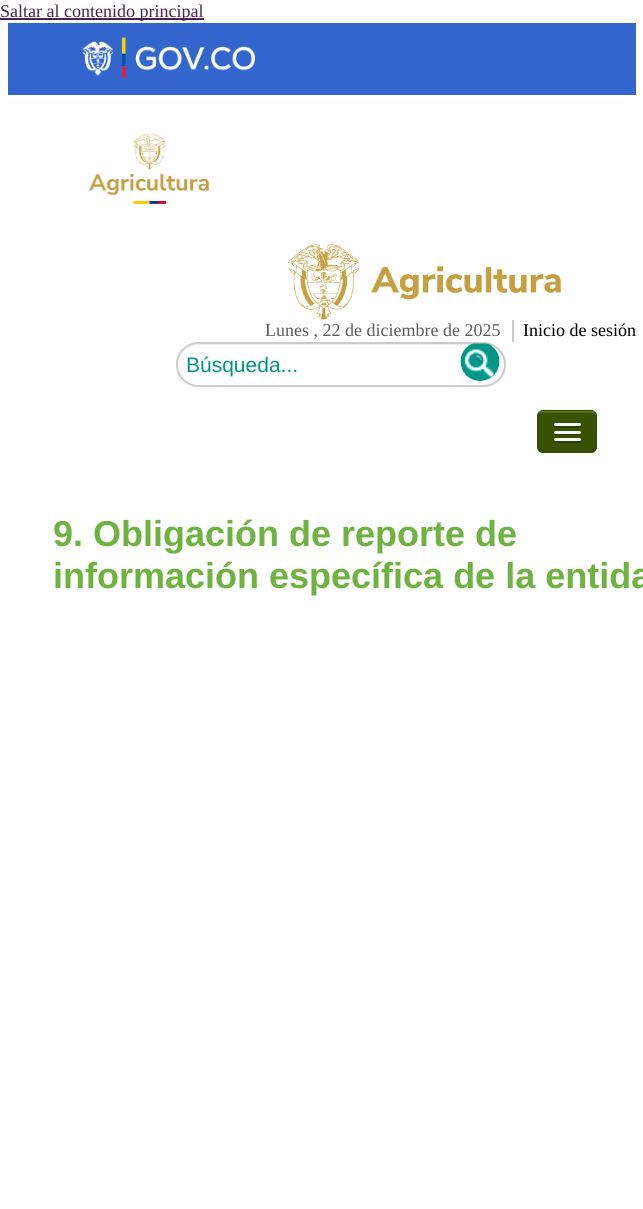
import math
import cairo


def round_path(ctx, x, y, w, h, r):
	ctx.new_sub_path()
	for i, (u, v) in enumerate([(x + w - r, y + h - r), (x + r, y + h - r), (x + r, y + r), (x + w - r, y + r)]):
		ctx.arc(u, v, r, i * math.pi / 2, (i + 1) * math.pi / 2)
	ctx.close_path()

def paste(ctx, path, x, y, w, h):
	ctx.save()
	ctx.set_source_surface(cairo.ImageSurface.create_from_png(path), x, y)
	ctx.rectangle(x, y, w, h)
	ctx.fill()
	ctx.restore()

def draw(ctx):
	ctx.set_source_rgb(1, 1, 1)
	ctx.paint()
	ctx.set_source_rgb(0.302, 0.129, 0.322)
	ctx.rectangle(0, 18, 204, 2)
	ctx.fill()
	ctx.select_font_face('Liberation Serif')
	ctx.set_font_size(18)
	ctx.move_to(0, 17)
	ctx.show_text('Saltar al contenido principal')
	ctx.set_source_rgb(0.2, 0.4, 0.8)
	ctx.rectangle(8, 23, 628, 72)
	ctx.fill()
	paste(ctx, 'media/1.png', 82, 37, 173, 41)
	paste(ctx, 'media/2.png', 88, 133, 122, 71)
	paste(ctx, 'media/3.png', 288, 244, 273, 76)
	ctx.set_source_rgb(0.357, 0.357, 0.357)
	ctx.move_to(265, 336)
	ctx.show_text('Lunes , 22 de diciembre de 2025')
	ctx.set_source_rgb(0.8, 0.8, 0.8)
	ctx.rectangle(512, 320, 2, 22)
	ctx.fill()
	ctx.set_source_rgb(0, 0, 0)
	ctx.move_to(523, 336)
	ctx.show_text('Inicio de sesión')
	ctx.set_source_rgb(0.925, 0.925, 0.925)
	ctx.new_path()
	ctx.move_to(198, 345)
	ctx.line_to(483, 345)
	ctx.curve_to(495, 345, 504, 354, 504, 365)
	ctx.curve_to(504, 354, 495, 344, 483, 344)
	ctx.line_to(198, 344)
	ctx.curve_to(186, 344, 177, 354, 177, 365)
	ctx.curve_to(177, 354, 186, 345, 198, 345)
	ctx.close_path()
	ctx.fill()
	round_path(ctx, 177, 343, 328, 43, 21.5)
	ctx.set_source_rgb(0.8, 0.8, 0.8)
	ctx.stroke()
	ctx.select_font_face('Liberation Sans')
	ctx.set_font_size(21)
	ctx.set_source_rgb(0, 0.588, 0.529)
	ctx.move_to(186, 372)
	ctx.show_text('Búsqueda...')
	paste(ctx, 'media/4.png', 460, 343, 40, 38)
	ctx.save()
	round_path(ctx, 537, 410, 60, 43, 6)
	ctx.clip()
	ctx.set_source_rgb(0.224, 0.318, 0.008)
	ctx.rectangle(537, 410, 60, 1)
	ctx.fill()
	ctx.set_source_rgb(0.306, 0.431, 0.012)
	ctx.rectangle(537, 411, 60, 2)
	ctx.fill()
	ctx.set_source_rgb(0.224, 0.318, 0.008)
	ctx.rectangle(537, 413, 60, 39)
	ctx.fill()
	ctx.set_source_rgb(0.306, 0.431, 0.012)
	ctx.rectangle(537, 452, 60, 1)
	ctx.fill()
	ctx.restore()
	ctx.set_source_rgba(1, 1, 1, 0.1)
	ctx.new_path()
	ctx.move_to(543, 412)
	ctx.line_to(591, 412)
	ctx.curve_to(593, 412, 596, 415, 596, 417)
	ctx.line_to(596, 416)
	ctx.curve_to(596, 413, 594, 411, 591, 411)
	ctx.line_to(544, 411)
	ctx.curve_to(542, 411, 540, 412, 539, 414)
	ctx.curve_to(540, 413, 542, 412, 543, 412)
	ctx.close_path()
	ctx.fill()
	ctx.new_path()
	ctx.move_to(594.5, 450.5)
	ctx.curve_to(593.5, 451.5, 592.5, 452, 591, 452)
	ctx.line_to(543, 452)
	ctx.curve_to(541.5, 452, 540.5, 451.5, 539.5, 450.5)
	ctx.set_source_rgba(0, 0, 0, 0.25)
	ctx.set_line_width(1.5)
	ctx.stroke()
	ctx.new_path()
	ctx.move_to(539.5, 450.5)
	ctx.curve_to(538.5, 449.5, 538, 448.5, 538, 447)
	ctx.line_to(538, 415.5)
	ctx.curve_to(538, 414, 538.5, 413, 539.5, 412)
	ctx.curve_to(540.5, 411, 541.5, 410, 543, 410)
	ctx.line_to(591, 410)
	ctx.curve_to(592.5, 410, 593.5, 411, 594.5, 412)
	ctx.curve_to(595.5, 413, 596, 414, 596, 415.5)
	ctx.line_to(596, 447)
	ctx.curve_to(596, 448.5, 595.5, 449.5, 594.5, 450.5)
	ctx.set_source_rgba(0, 0, 0, 0.1)
	ctx.stroke()
	ctx.set_source_rgb(0.169, 0.239, 0.008)
	ctx.new_path()
	ctx.move_to(554, 426)
	ctx.curve_to(552.5, 429, 559.5, 428, 559.5, 428)
	ctx.line_to(580, 428)
	ctx.curve_to(581, 427.5, 581.5, 426, 580.5, 425)
	ctx.line_to(579, 426)
	ctx.curve_to(577, 426.5, 555, 426.5, 554, 426)
	ctx.close_path()
	ctx.fill()
	ctx.set_source_rgb(0.961, 0.961, 0.961)
	round_path(ctx, 554, 423, 27, 3, 1.5)
	ctx.fill()
	ctx.set_source_rgb(0.169, 0.239, 0.008)
	ctx.new_path()
	ctx.move_to(554, 433)
	ctx.curve_to(553.5, 436, 559, 435, 559.5, 435)
	ctx.line_to(579.5, 435)
	ctx.curve_to(581, 435, 581.5, 433, 580.5, 432.5)
	ctx.line_to(579.5, 433.5)
	ctx.curve_to(578, 434, 554.5, 433.5, 554, 433)
	ctx.close_path()
	ctx.fill()
	ctx.set_source_rgb(0.961, 0.961, 0.961)
	round_path(ctx, 554, 431, 27, 3, 1.5)
	ctx.fill()
	ctx.set_source_rgb(0.169, 0.239, 0.008)
	ctx.new_path()
	ctx.move_to(554, 441)
	ctx.curve_to(552.5, 444, 559.5, 443, 559.5, 443)
	ctx.line_to(580, 443)
	ctx.curve_to(581, 442.5, 581.5, 441, 580.5, 440)
	ctx.line_to(579, 441)
	ctx.curve_to(577, 441.5, 555, 441.5, 554, 441)
	ctx.close_path()
	ctx.fill()
	ctx.set_source_rgb(0.961, 0.961, 0.961)
	round_path(ctx, 554, 438, 27, 3, 1.5)
	ctx.fill()
	ctx.select_font_face('Liberation Sans', cairo.FONT_SLANT_NORMAL, cairo.FONT_WEIGHT_BOLD)
	ctx.set_font_size(36)
	ctx.set_source_rgb(0.427, 0.702, 0.247)
	ctx.move_to(53, 546)
	ctx.show_text('9. Obligación de reporte de')
	ctx.move_to(53, 588)
	ctx.show_text('información específica de la entida')


surface = cairo.ImageSurface(cairo.FORMAT_RGB24, 643, 1209)
ctx = cairo.Context(surface)
options = cairo.FontOptions()
options.set_hint_metrics(cairo.HINT_METRICS_OFF)
options.set_hint_style(cairo.HINT_STYLE_NONE)
ctx.set_font_options(options)
ctx.set_miter_limit(4)
draw(ctx)
surface.write_to_png('image.png')
